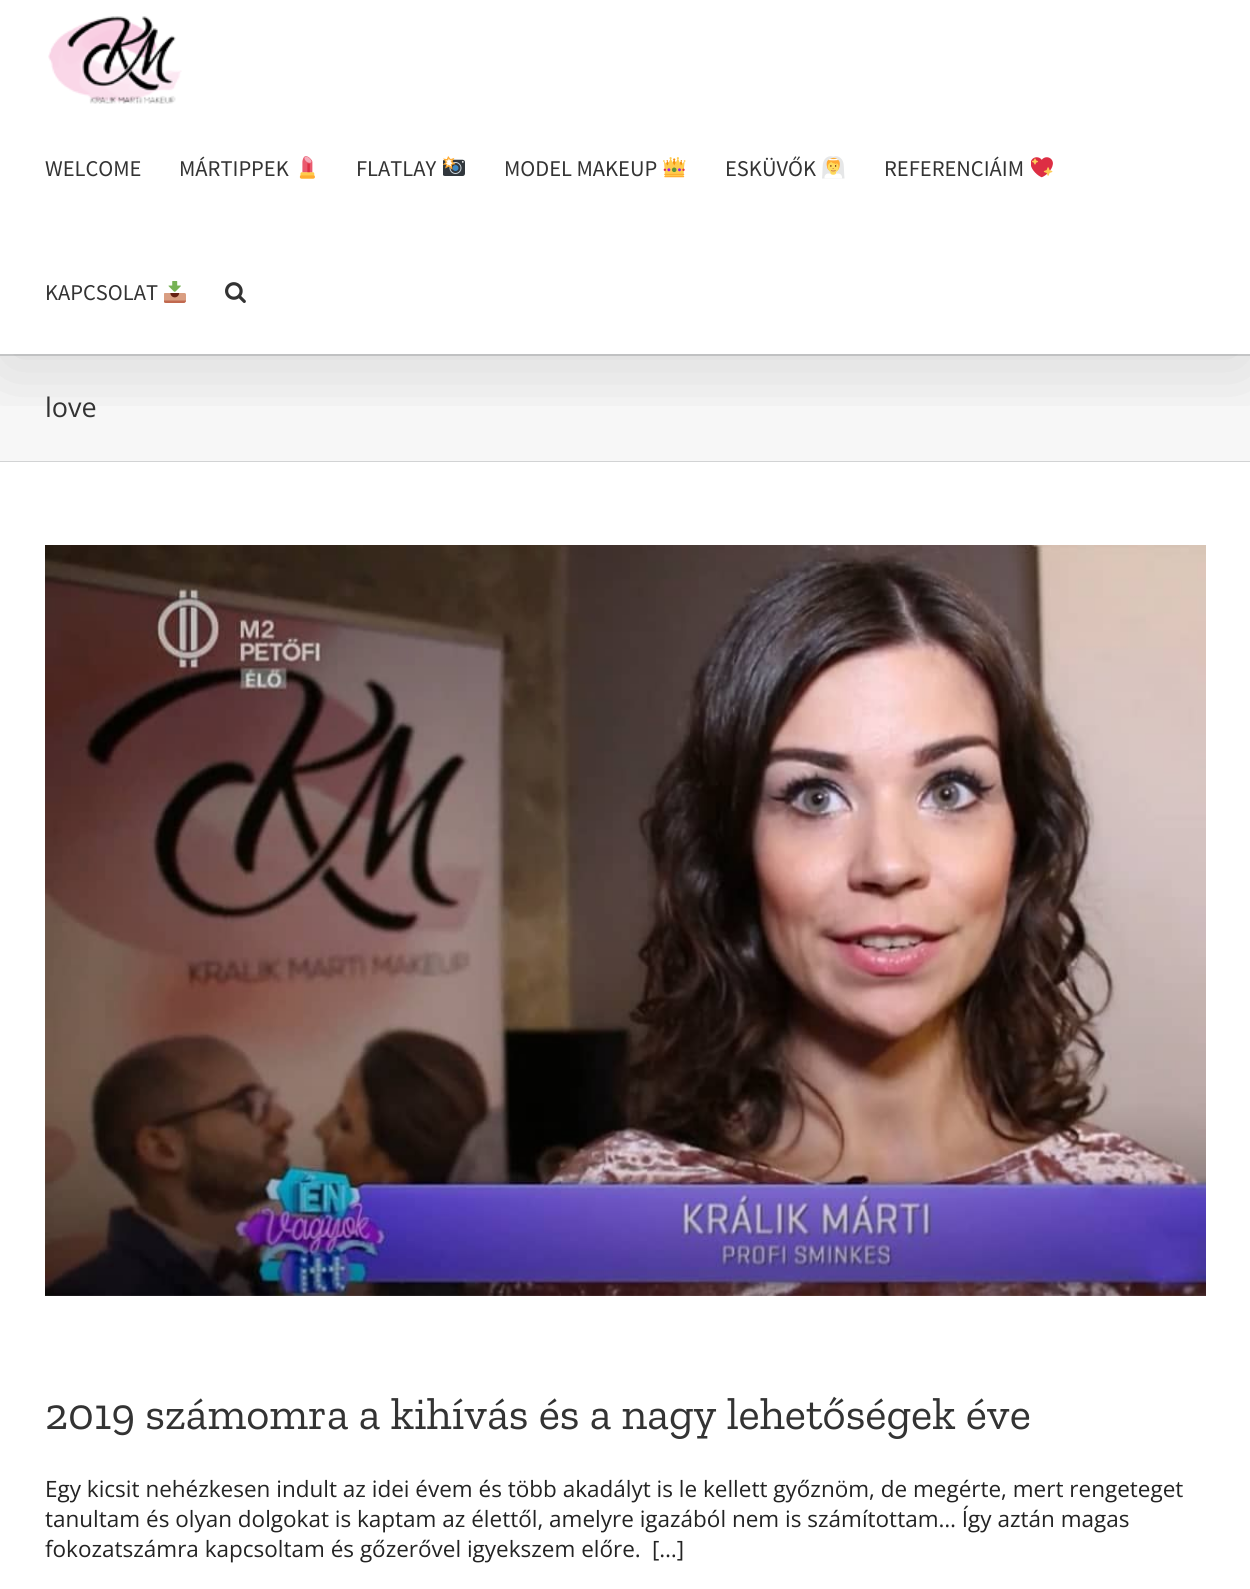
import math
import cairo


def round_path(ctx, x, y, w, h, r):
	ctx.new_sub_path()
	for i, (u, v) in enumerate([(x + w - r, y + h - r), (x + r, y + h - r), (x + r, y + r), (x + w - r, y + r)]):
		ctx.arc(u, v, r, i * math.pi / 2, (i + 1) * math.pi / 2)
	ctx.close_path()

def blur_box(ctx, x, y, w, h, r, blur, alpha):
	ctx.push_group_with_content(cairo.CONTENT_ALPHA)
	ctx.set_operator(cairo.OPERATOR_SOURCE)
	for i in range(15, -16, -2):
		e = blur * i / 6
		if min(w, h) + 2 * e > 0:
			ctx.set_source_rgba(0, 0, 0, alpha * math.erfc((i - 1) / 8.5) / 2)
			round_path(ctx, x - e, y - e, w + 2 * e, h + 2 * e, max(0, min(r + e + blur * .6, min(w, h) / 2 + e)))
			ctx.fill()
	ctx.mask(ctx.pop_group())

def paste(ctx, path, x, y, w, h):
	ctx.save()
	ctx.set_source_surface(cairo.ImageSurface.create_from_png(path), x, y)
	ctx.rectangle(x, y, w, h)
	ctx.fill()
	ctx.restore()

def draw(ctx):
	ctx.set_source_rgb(1, 1, 1)
	ctx.paint()
	ctx.set_source_rgb(0.965, 0.965, 0.965)
	ctx.rectangle(0, 356, 1250, 105)
	ctx.fill()
	ctx.set_source_rgb(0.824, 0.827, 0.831)
	ctx.rectangle(0, 354, 1250, 2)
	ctx.rectangle(0, 461, 1250, 1)
	ctx.fill()
	ctx.save()
	ctx.rectangle(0, 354, 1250, 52)
	ctx.clip()
	ctx.set_source_rgb(0, 0, 0)
	blur_box(ctx, 3, 18, 1245, 348, 0, 37.5, 0.14)
	ctx.restore()
	paste(ctx, 'media/1.png', 48, 16, 134, 88)
	ctx.select_font_face('Source Sans Pro')
	ctx.set_font_size(22.5)
	ctx.set_source_rgb(0.2, 0.2, 0.2)
	ctx.move_to(45, 176)
	ctx.show_text('WELCOME')
	ctx.move_to(179, 176)
	ctx.show_text('MÁRTIPPEK')
	paste(ctx, 'media/2.png', 299, 156, 16, 23)
	ctx.move_to(356, 176)
	ctx.show_text('FLATLAY')
	paste(ctx, 'media/3.png', 443, 156, 22, 20)
	ctx.move_to(504, 176)
	ctx.show_text('MODEL MAKEUP')
	paste(ctx, 'media/4.png', 663, 157, 23, 21)
	ctx.move_to(725, 176)
	ctx.show_text('ESKÜVŐK')
	paste(ctx, 'media/5.png', 822, 156, 23, 23)
	ctx.move_to(884, 176)
	ctx.show_text('REFERENCIÁIM')
	paste(ctx, 'media/6.png', 1031, 157, 22, 21)
	ctx.move_to(45, 300)
	ctx.show_text('KAPCSOLAT')
	paste(ctx, 'media/7.png', 164, 281, 22, 22)
	paste(ctx, 'media/8.png', 225, 282, 21, 21)
	ctx.select_font_face('Open Sans')
	ctx.set_font_size(27)
	ctx.move_to(45, 417)
	ctx.show_text('love')
	paste(ctx, 'media/9.png', 45, 545, 1161, 751)
	ctx.select_font_face('Zilla Slab')
	ctx.set_font_size(44.9)
	ctx.move_to(45, 1429)
	ctx.show_text('2019 számomra a kihívás és a nagy lehetőségek éve')
	ctx.select_font_face('Open Sans')
	ctx.set_font_size(22.5)
	ctx.set_source_rgb(0.137, 0.137, 0.137)
	for x, y, s in [
		(45, 1497, 'Egy kicsit nehézkesen indult az idei évem és több akadályt is le kellett győznöm, de megérte, mert rengeteget'),
		(45, 1527, 'tanultam és olyan dolgokat is kaptam az élettől, amelyre igazából nem is számítottam… Így aztán magas'),
		(45, 1557, 'fokozatszámra kapcsoltam és gőzerővel igyekszem előre.'),
		(652, 1557, '[…]'),
	]:
		ctx.move_to(x, y)
		ctx.show_text(s)


surface = cairo.ImageSurface(cairo.FORMAT_RGB24, 1250, 1589)
ctx = cairo.Context(surface)
options = cairo.FontOptions()
options.set_hint_metrics(cairo.HINT_METRICS_OFF)
options.set_hint_style(cairo.HINT_STYLE_NONE)
ctx.set_font_options(options)
ctx.set_miter_limit(4)
draw(ctx)
surface.write_to_png('image.png')
